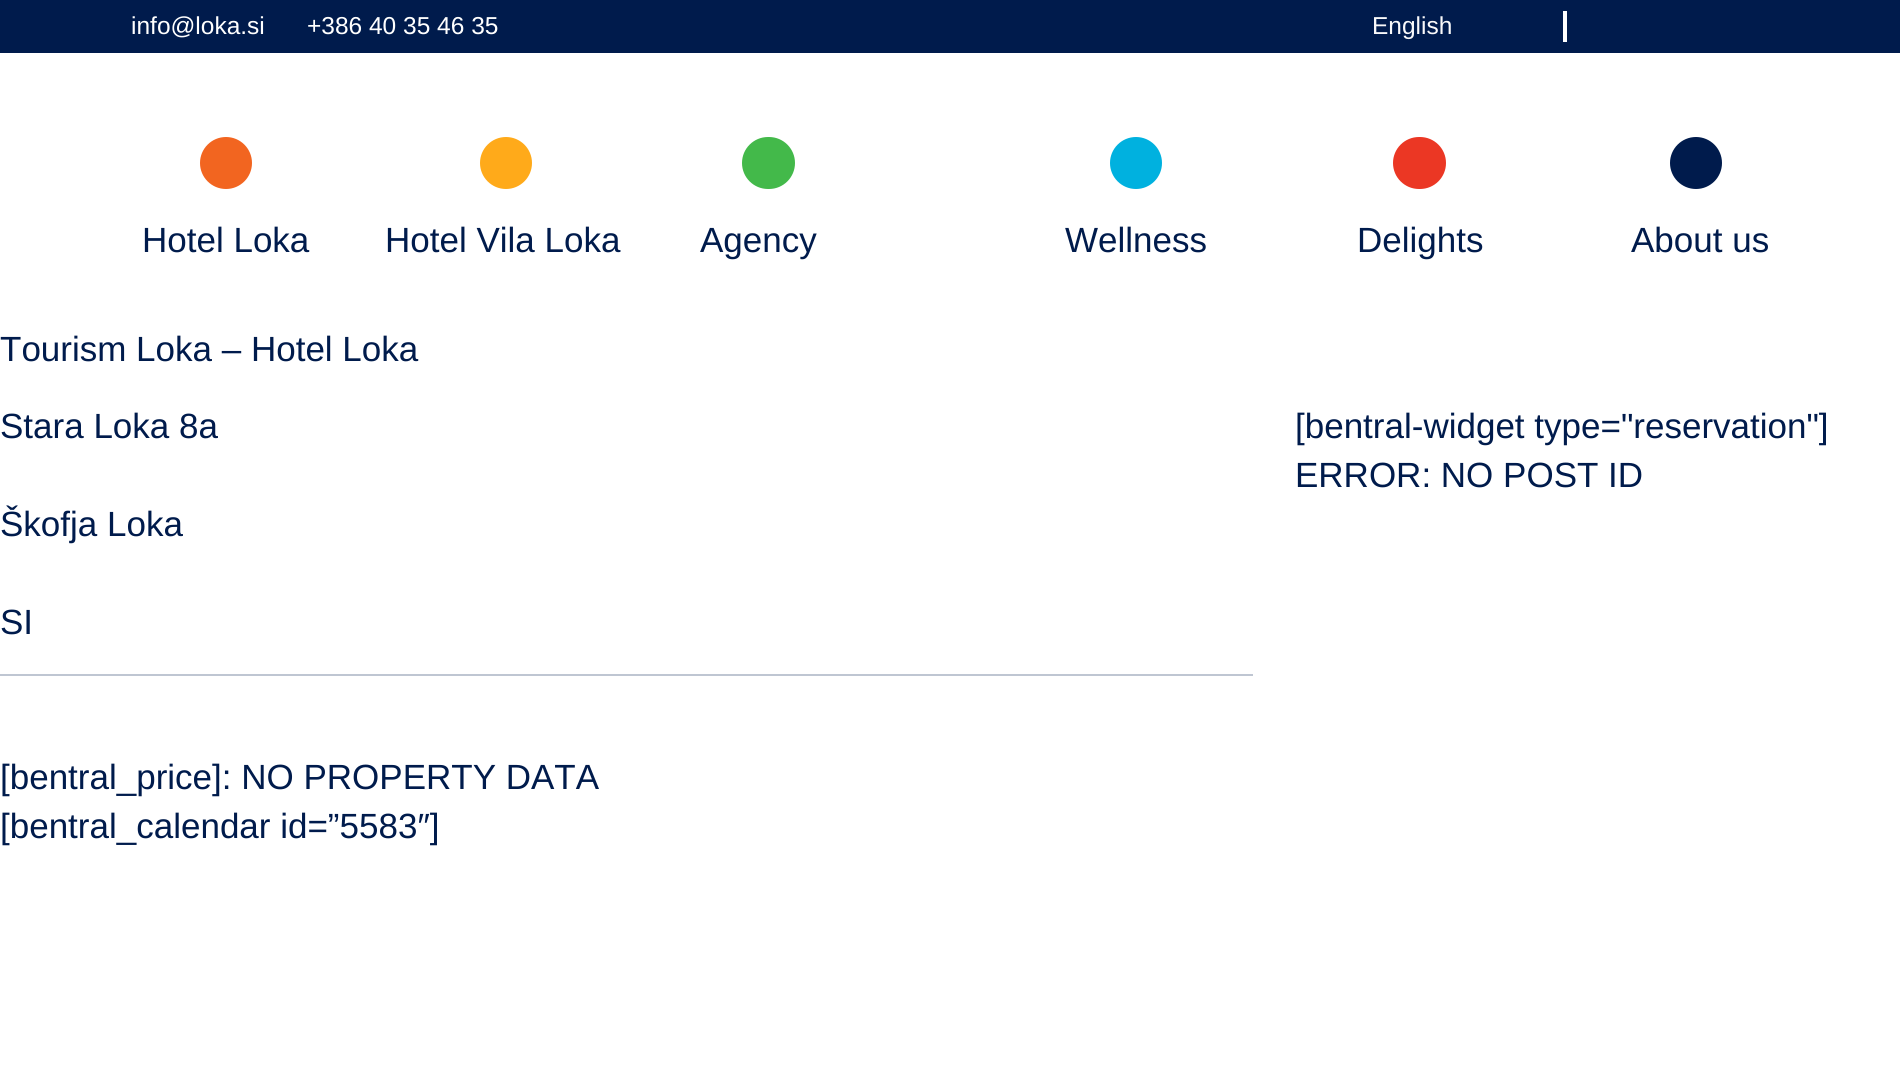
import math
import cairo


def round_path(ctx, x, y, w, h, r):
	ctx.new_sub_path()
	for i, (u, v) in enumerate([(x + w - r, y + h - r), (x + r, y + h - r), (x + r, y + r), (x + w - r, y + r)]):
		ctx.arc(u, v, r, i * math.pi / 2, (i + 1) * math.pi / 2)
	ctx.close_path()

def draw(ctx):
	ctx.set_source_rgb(1, 1, 1)
	ctx.paint()
	ctx.set_source_rgb(0, 0.106, 0.298)
	ctx.rectangle(0, 0, 1900, 53)
	ctx.fill()
	ctx.select_font_face('Liberation Sans')
	ctx.set_font_size(24.5)
	ctx.set_source_rgb(1, 1, 1)
	ctx.move_to(131, 34)
	ctx.show_text('info@loka.si')
	ctx.move_to(307, 34)
	ctx.show_text('+386 40 35 46 35')
	ctx.set_source_rgb(0.976, 0.976, 0.98)
	ctx.move_to(1372, 34)
	ctx.show_text('English')
	ctx.set_source_rgb(1, 1, 1)
	ctx.rectangle(1563, 11, 4, 31)
	ctx.fill()
	ctx.set_source_rgb(0.949, 0.396, 0.125)
	ctx.arc(226, 163, 26, 0, 2 * math.pi)
	ctx.fill()
	ctx.set_font_size(35)
	ctx.set_source_rgb(0, 0.106, 0.298)
	ctx.move_to(142, 252)
	ctx.show_text('Hotel Loka')
	ctx.set_source_rgb(1, 0.667, 0.102)
	ctx.new_path()
	ctx.arc(506, 163, 26, 0, 2 * math.pi)
	ctx.fill()
	ctx.set_source_rgb(0, 0.106, 0.298)
	ctx.move_to(385, 252)
	ctx.show_text('Hotel Vila Loka')
	ctx.set_source_rgb(0.263, 0.725, 0.29)
	round_path(ctx, 742, 137, 53, 52, 26)
	ctx.fill()
	ctx.set_source_rgb(0, 0.106, 0.298)
	ctx.move_to(700, 252)
	ctx.show_text('Agency')
	ctx.set_source_rgb(0, 0.694, 0.875)
	ctx.new_path()
	ctx.arc(1136, 163, 26, 0, 2 * math.pi)
	ctx.fill()
	ctx.set_source_rgb(0, 0.106, 0.298)
	ctx.move_to(1065, 252)
	ctx.show_text('Wellness')
	ctx.set_source_rgb(0.918, 0.216, 0.141)
	round_path(ctx, 1393, 137, 53, 52, 26)
	ctx.fill()
	ctx.set_source_rgb(0, 0.106, 0.298)
	ctx.move_to(1357, 252)
	ctx.show_text('Delights')
	ctx.new_path()
	ctx.arc(1696, 163, 26, 0, 2 * math.pi)
	ctx.fill()
	for x, y, s in [
		(1631, 252, 'About us'),
		(0, 361, 'Tourism Loka – Hotel Loka'),
		(0, 438, 'Stara Loka 8a'),
		(0, 536, 'Škofja Loka'),
		(0, 634, 'SI'),
	]:
		ctx.move_to(x, y)
		ctx.show_text(s)
	ctx.set_source_rgb(0.749, 0.776, 0.824)
	ctx.rectangle(0, 674, 1253, 2)
	ctx.fill()
	ctx.set_source_rgb(0, 0.106, 0.298)
	for x, y, s in [
		(0, 789, '[bentral_price]: NO PROPERTY DATA'),
		(0, 838, '[bentral_calendar id=”5583″]'),
		(1295, 438, '[bentral-widget type="reservation"]'),
		(1295, 487, 'ERROR: NO POST ID'),
	]:
		ctx.move_to(x, y)
		ctx.show_text(s)


surface = cairo.ImageSurface(cairo.FORMAT_RGB24, 1900, 1071)
ctx = cairo.Context(surface)
options = cairo.FontOptions()
options.set_hint_metrics(cairo.HINT_METRICS_OFF)
options.set_hint_style(cairo.HINT_STYLE_NONE)
ctx.set_font_options(options)
ctx.set_miter_limit(4)
draw(ctx)
surface.write_to_png('image.png')
